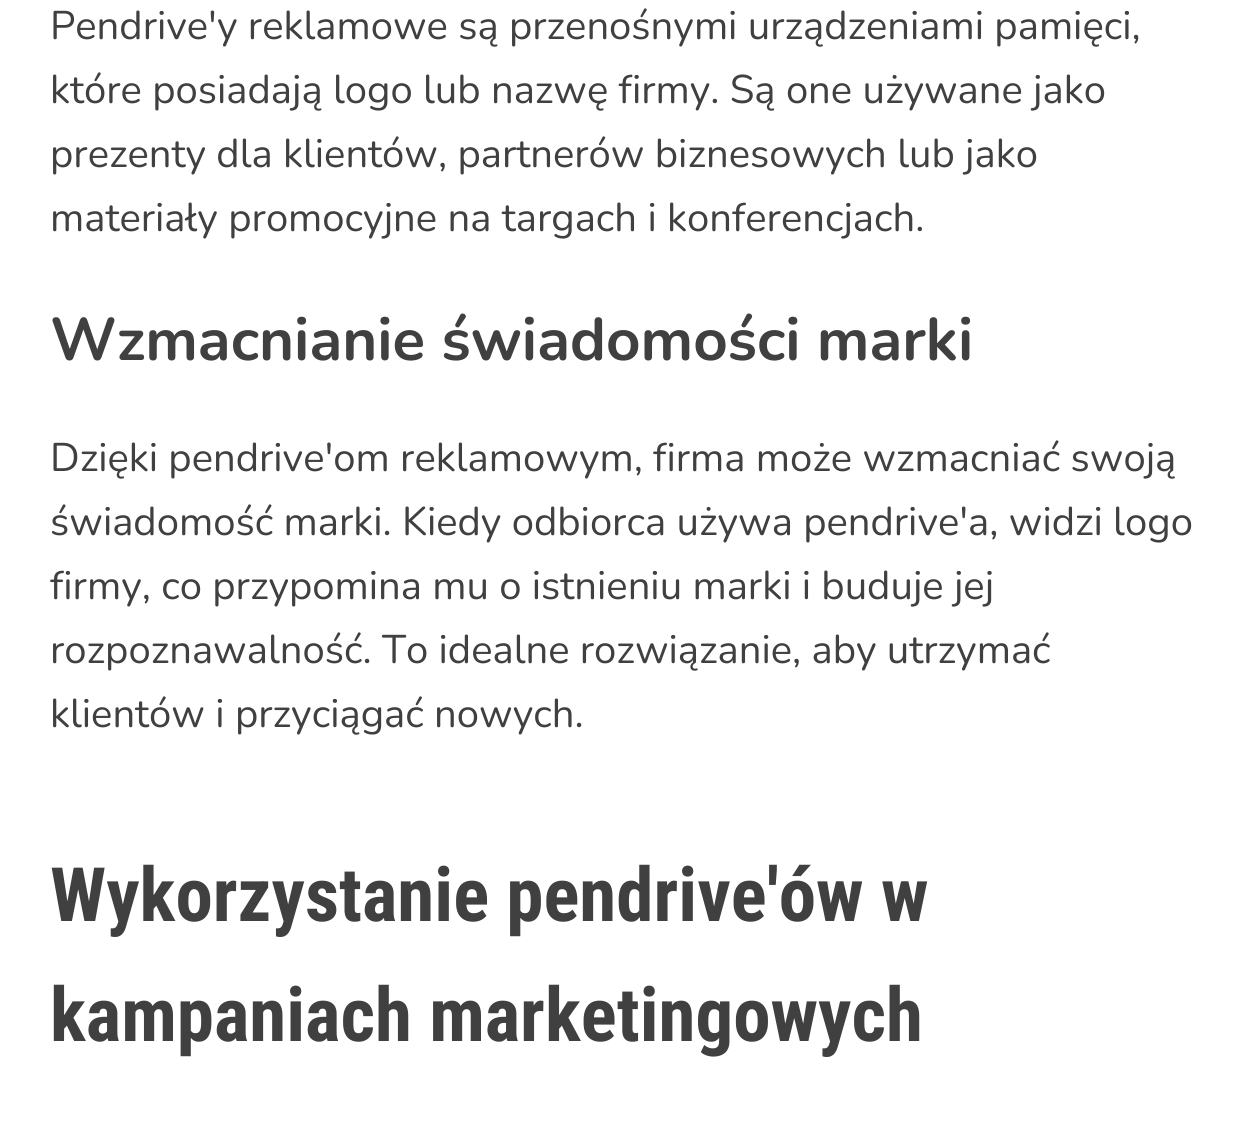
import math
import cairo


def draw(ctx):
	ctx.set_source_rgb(1, 1, 1)
	ctx.paint()
	ctx.select_font_face('Nunito')
	ctx.set_font_size(40)
	ctx.set_source_rgb(0.251, 0.251, 0.251)
	for x, y, s in [
		(50, 39, 'Pendrive\'y reklamowe są przenośnymi urządzeniami pamięci,'),
		(50, 103, 'które posiadają logo lub nazwę firmy. Są one używane jako'),
		(50, 167, 'prezenty dla klientów, partnerów biznesowych lub jako'),
		(50, 231, 'materiały promocyjne na targach i konferencjach.'),
	]:
		ctx.move_to(x, y)
		ctx.show_text(s)
	ctx.select_font_face('Nunito', cairo.FONT_SLANT_NORMAL, cairo.FONT_WEIGHT_BOLD)
	ctx.set_font_size(60)
	ctx.move_to(50, 360)
	ctx.show_text('Wzmacnianie świadomości marki')
	ctx.select_font_face('Nunito')
	ctx.set_font_size(40)
	for x, y, s in [
		(50, 471, 'Dzięki pendrive\'om reklamowym, firma może wzmacniać swoją'),
		(50, 535, 'świadomość marki. Kiedy odbiorca używa pendrive\'a, widzi logo'),
		(50, 599, 'firmy, co przypomina mu o istnieniu marki i buduje jej'),
		(50, 663, 'rozpoznawalność. To idealne rozwiązanie, aby utrzymać'),
		(50, 727, 'klientów i przyciągać nowych.'),
	]:
		ctx.move_to(x, y)
		ctx.show_text(s)
	ctx.select_font_face('Roboto Condensed', cairo.FONT_SLANT_NORMAL, cairo.FONT_WEIGHT_BOLD)
	ctx.set_font_size(75)
	ctx.move_to(50, 921)
	ctx.show_text('Wykorzystanie pendrive\'ów w')
	ctx.move_to(50, 1041)
	ctx.show_text('kampaniach marketingowych')


surface = cairo.ImageSurface(cairo.FORMAT_RGB24, 1244, 1122)
ctx = cairo.Context(surface)
options = cairo.FontOptions()
options.set_hint_metrics(cairo.HINT_METRICS_OFF)
options.set_hint_style(cairo.HINT_STYLE_NONE)
ctx.set_font_options(options)
ctx.set_miter_limit(4)
draw(ctx)
surface.write_to_png('image.png')
